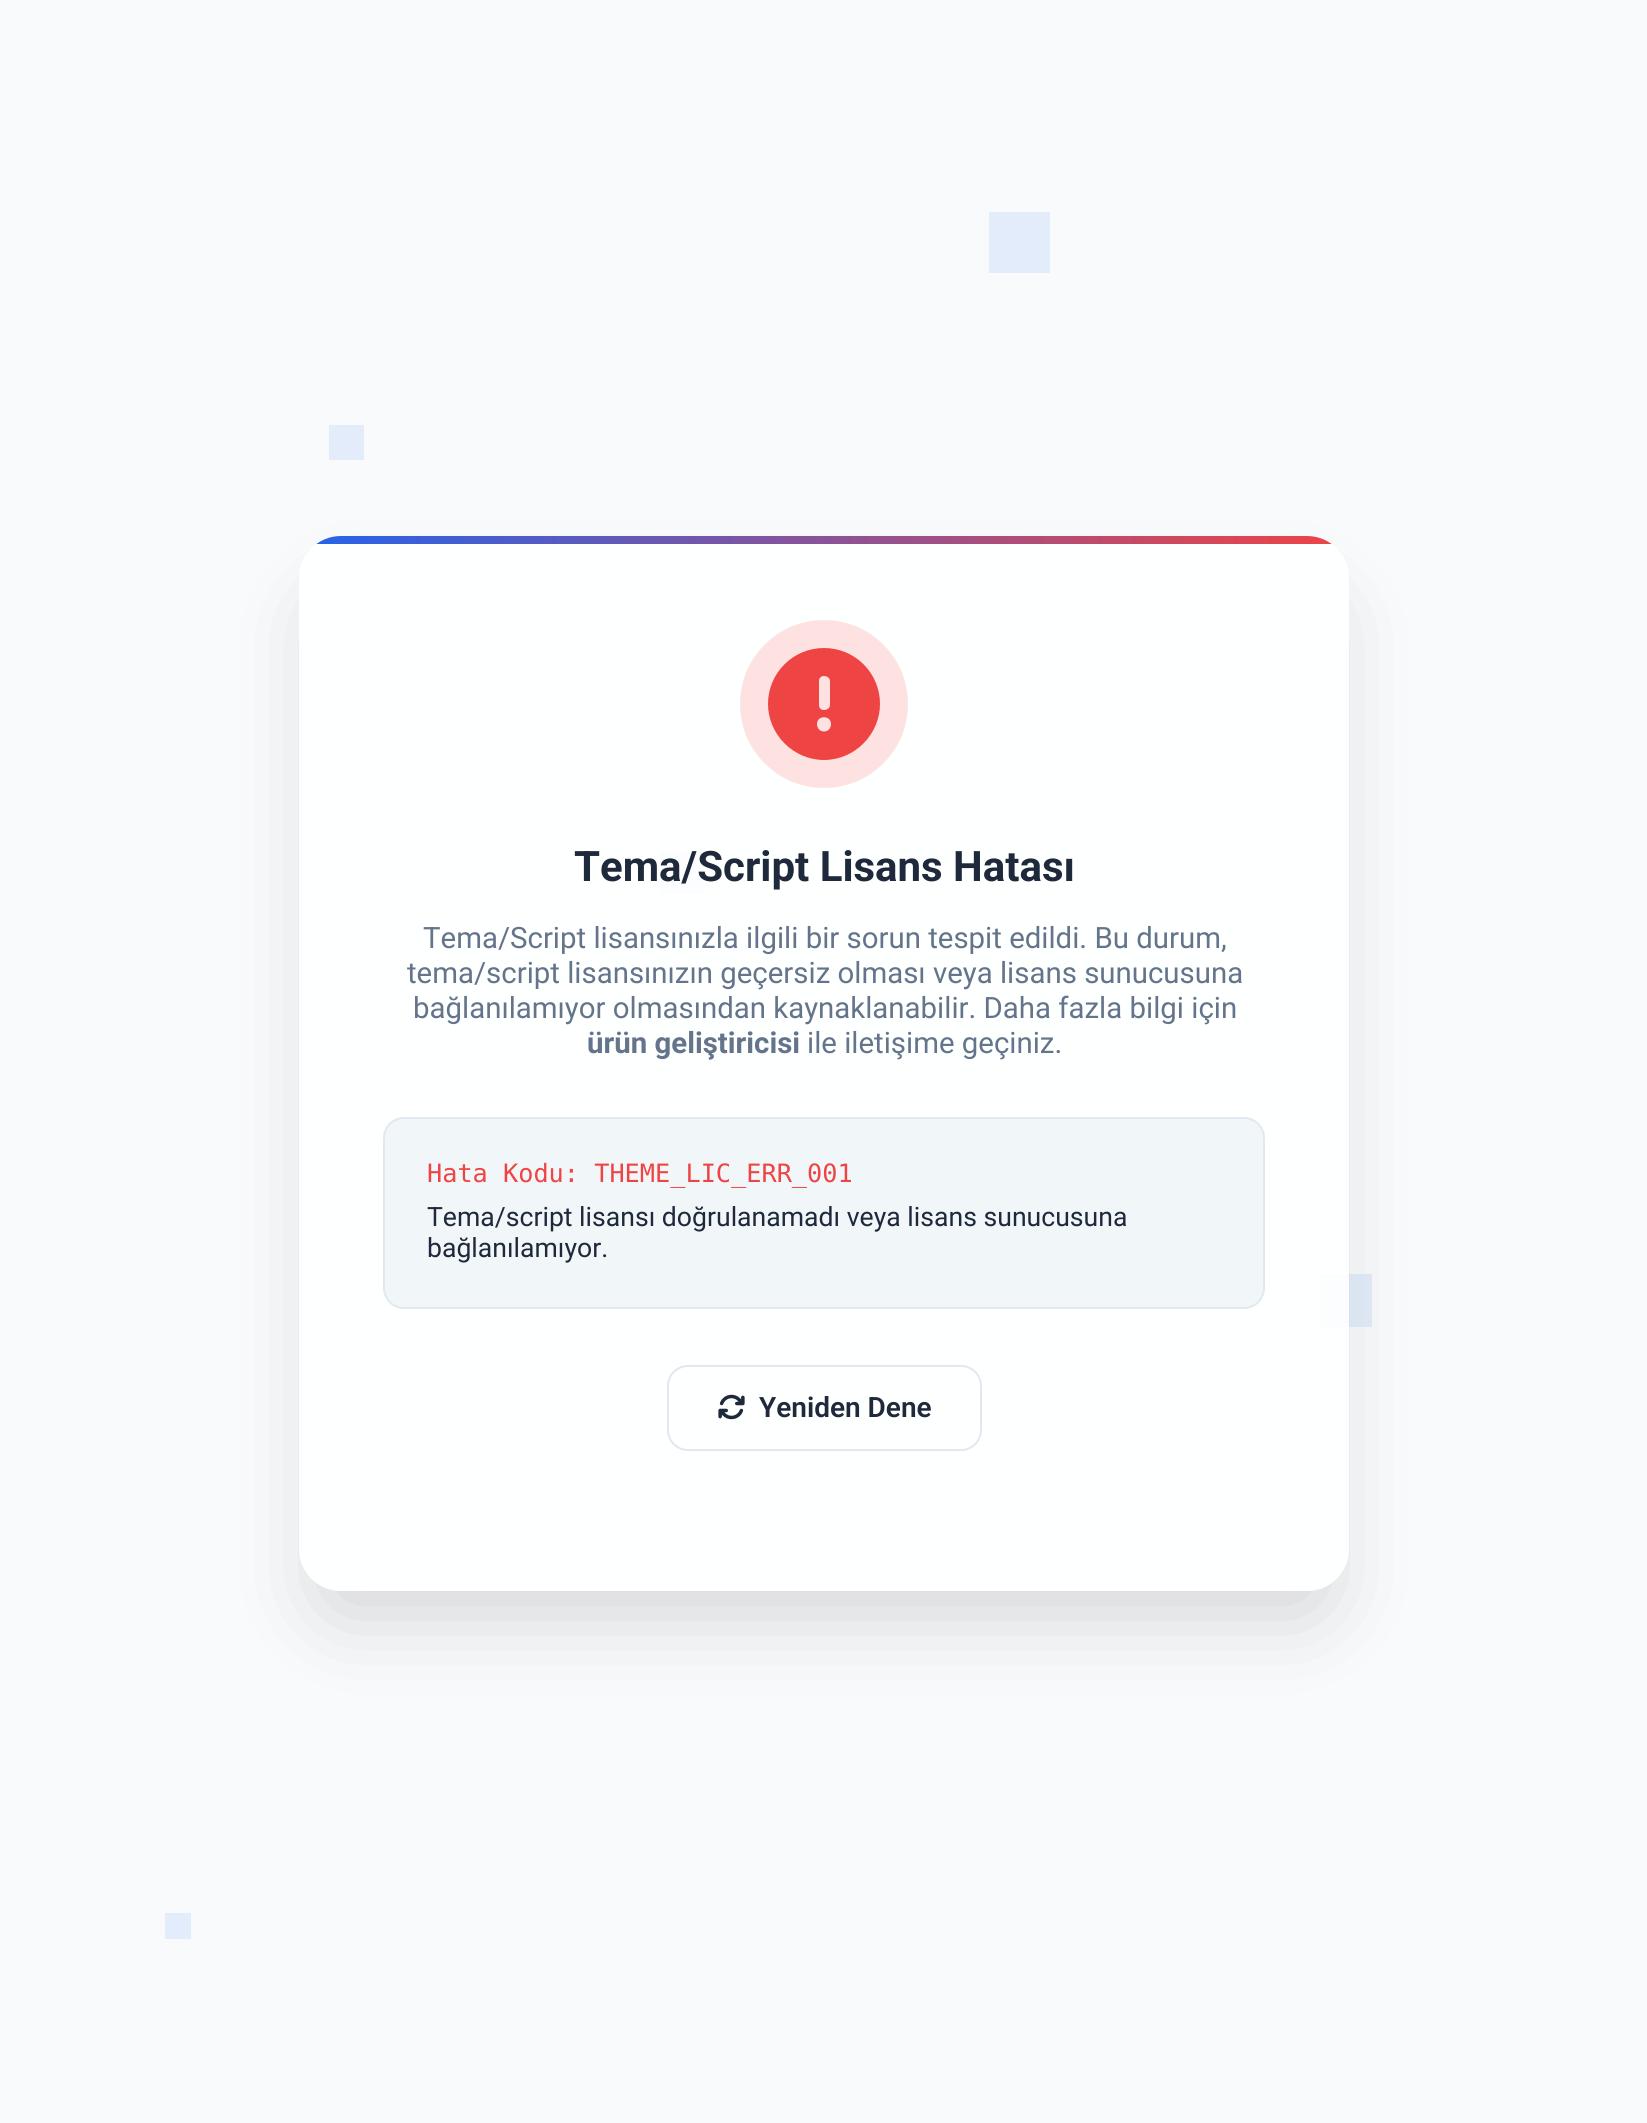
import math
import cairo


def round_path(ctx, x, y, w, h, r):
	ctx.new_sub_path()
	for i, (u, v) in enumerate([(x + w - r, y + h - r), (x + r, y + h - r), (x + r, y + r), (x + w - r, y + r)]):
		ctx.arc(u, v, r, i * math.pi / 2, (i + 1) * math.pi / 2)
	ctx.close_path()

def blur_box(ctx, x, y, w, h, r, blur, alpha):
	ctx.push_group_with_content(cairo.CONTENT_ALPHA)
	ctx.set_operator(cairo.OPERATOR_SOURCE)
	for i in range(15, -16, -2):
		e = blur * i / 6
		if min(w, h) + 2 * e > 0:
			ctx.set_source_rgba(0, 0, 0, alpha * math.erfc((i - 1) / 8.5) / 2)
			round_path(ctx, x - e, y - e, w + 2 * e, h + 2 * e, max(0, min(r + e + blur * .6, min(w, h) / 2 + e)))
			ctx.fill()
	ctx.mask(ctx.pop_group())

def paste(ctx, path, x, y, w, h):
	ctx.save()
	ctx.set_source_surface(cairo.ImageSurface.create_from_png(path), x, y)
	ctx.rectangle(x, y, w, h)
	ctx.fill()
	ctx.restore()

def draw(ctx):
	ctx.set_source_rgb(0.973, 0.98, 0.988)
	ctx.paint()
	ctx.set_source_rgb(0.89, 0.922, 0.98)
	ctx.rectangle(989, 212, 61, 61)
	ctx.rectangle(329, 425, 35, 35)
	ctx.rectangle(660, 851, 44, 43)
	ctx.rectangle(1320, 1274, 52, 53)
	ctx.rectangle(165, 1913, 26, 26)
	ctx.fill()
	ctx.save()
	ctx.set_fill_rule(cairo.FILL_RULE_EVEN_ODD)
	ctx.new_path()
	ctx.move_to(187, 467)
	ctx.line_to(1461, 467)
	ctx.line_to(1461, 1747)
	ctx.line_to(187, 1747)
	ctx.close_path()
	ctx.move_to(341, 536)
	ctx.line_to(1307, 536)
	ctx.curve_to(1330, 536, 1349, 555, 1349, 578)
	ctx.line_to(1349, 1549)
	ctx.curve_to(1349, 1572, 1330, 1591, 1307, 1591)
	ctx.line_to(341, 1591)
	ctx.curve_to(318, 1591, 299, 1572, 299, 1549)
	ctx.line_to(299, 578)
	ctx.curve_to(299, 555, 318, 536, 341, 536)
	ctx.close_path()
	ctx.clip()
	ctx.set_source_rgb(0, 0, 0)
	blur_box(ctx, 320, 600, 1008, 1014, 21, 44, 0.15)
	ctx.restore()
	ctx.set_source_rgba(1, 1, 1, 0.9)
	round_path(ctx, 299, 536, 1050, 1055, 42)
	ctx.fill()
	ctx.save()
	round_path(ctx, 299, 536, 1050, 1055, 42)
	ctx.clip()
	gradient = cairo.LinearGradient(299, 540, 1349, 540)
	gradient.add_color_stop_rgba(0, 0.145, 0.388, 0.922, 1)
	gradient.add_color_stop_rgba(1, 0.937, 0.267, 0.267, 1)
	ctx.set_source(gradient)
	ctx.rectangle(316, 536, 1016, 8)
	ctx.fill()
	ctx.restore()
	ctx.set_source_rgb(0.996, 0.886, 0.886)
	ctx.arc(824, 704, 84, 0, 2 * math.pi)
	ctx.fill()
	ctx.set_source_rgb(0.937, 0.267, 0.267)
	ctx.new_path()
	ctx.move_to(824, 760)
	ctx.curve_to(855, 760, 880, 734, 880, 704)
	ctx.curve_to(880, 673, 855, 648, 824, 648)
	ctx.curve_to(793, 648, 768, 673, 768, 704)
	ctx.curve_to(768, 734, 793, 760, 824, 760)
	ctx.close_path()
	ctx.move_to(824, 676)
	ctx.curve_to(827, 676, 830, 678, 830, 681)
	ctx.line_to(830, 705)
	ctx.curve_to(830, 708, 827, 710, 824, 710)
	ctx.curve_to(821, 710, 819, 708, 819, 705)
	ctx.line_to(819, 681)
	ctx.curve_to(819, 678, 821, 676, 824, 676)
	ctx.close_path()
	ctx.move_to(817, 724)
	ctx.curve_to(817, 715, 831, 715, 831, 724)
	ctx.curve_to(831, 734, 817, 734, 817, 724)
	ctx.close_path()
	ctx.fill()
	ctx.select_font_face('Roboto', cairo.FONT_SLANT_NORMAL, cairo.FONT_WEIGHT_BOLD)
	ctx.set_font_size(42)
	ctx.set_source_rgb(0.118, 0.161, 0.231)
	ctx.move_to(574, 881)
	ctx.show_text('Tema/Script Lisans Hatası')
	ctx.select_font_face('Roboto')
	ctx.set_font_size(29.4)
	ctx.set_source_rgb(0.392, 0.455, 0.545)
	for x, y, s in [
		(423, 948, 'Tema/Script lisansınızla ilgili bir sorun tespit edildi. Bu durum,'),
		(407, 983, 'tema/script lisansınızın geçersiz olması veya lisans sunucusuna'),
		(413, 1018, 'bağlanılamıyor olmasından kaynaklanabilir. Daha fazla bilgi için'),
	]:
		ctx.move_to(x, y)
		ctx.show_text(s)
	ctx.select_font_face('Roboto', cairo.FONT_SLANT_NORMAL, cairo.FONT_WEIGHT_BOLD)
	ctx.move_to(587, 1053)
	ctx.show_text('ürün geliştiricisi')
	ctx.select_font_face('Roboto')
	ctx.move_to(807, 1053)
	ctx.show_text('ile iletişime geçiniz.')
	ctx.set_source_rgb(0.945, 0.961, 0.976)
	round_path(ctx, 384, 1118, 880, 190, 20)
	ctx.fill_preserve()
	ctx.set_source_rgb(0.886, 0.91, 0.941)
	ctx.stroke()
	ctx.select_font_face('DejaVu Sans Mono')
	ctx.set_font_size(25.25)
	ctx.set_source_rgb(0.937, 0.267, 0.267)
	ctx.move_to(427, 1182)
	ctx.show_text('Hata Kodu: THEME_LIC_ERR_001')
	ctx.select_font_face('Roboto')
	ctx.set_font_size(26.6)
	ctx.set_source_rgb(0.118, 0.161, 0.231)
	ctx.move_to(427, 1226)
	ctx.show_text('Tema/script lisansı doğrulanamadı veya lisans sunucusuna')
	ctx.move_to(427, 1257)
	ctx.show_text('bağlanılamıyor.')
	round_path(ctx, 668, 1366, 313, 84, 20)
	ctx.set_source_rgb(0.886, 0.91, 0.941)
	ctx.stroke()
	paste(ctx, 'media/1.png', 718, 1394, 27, 26)
	ctx.select_font_face('Roboto SemiBold')
	ctx.set_font_size(28)
	ctx.set_source_rgb(0.118, 0.161, 0.231)
	ctx.move_to(759, 1417)
	ctx.show_text('Yeniden Dene')


surface = cairo.ImageSurface(cairo.FORMAT_RGB24, 1647, 2123)
ctx = cairo.Context(surface)
options = cairo.FontOptions()
options.set_hint_metrics(cairo.HINT_METRICS_OFF)
options.set_hint_style(cairo.HINT_STYLE_NONE)
ctx.set_font_options(options)
ctx.set_miter_limit(4)
draw(ctx)
surface.write_to_png('image.png')
